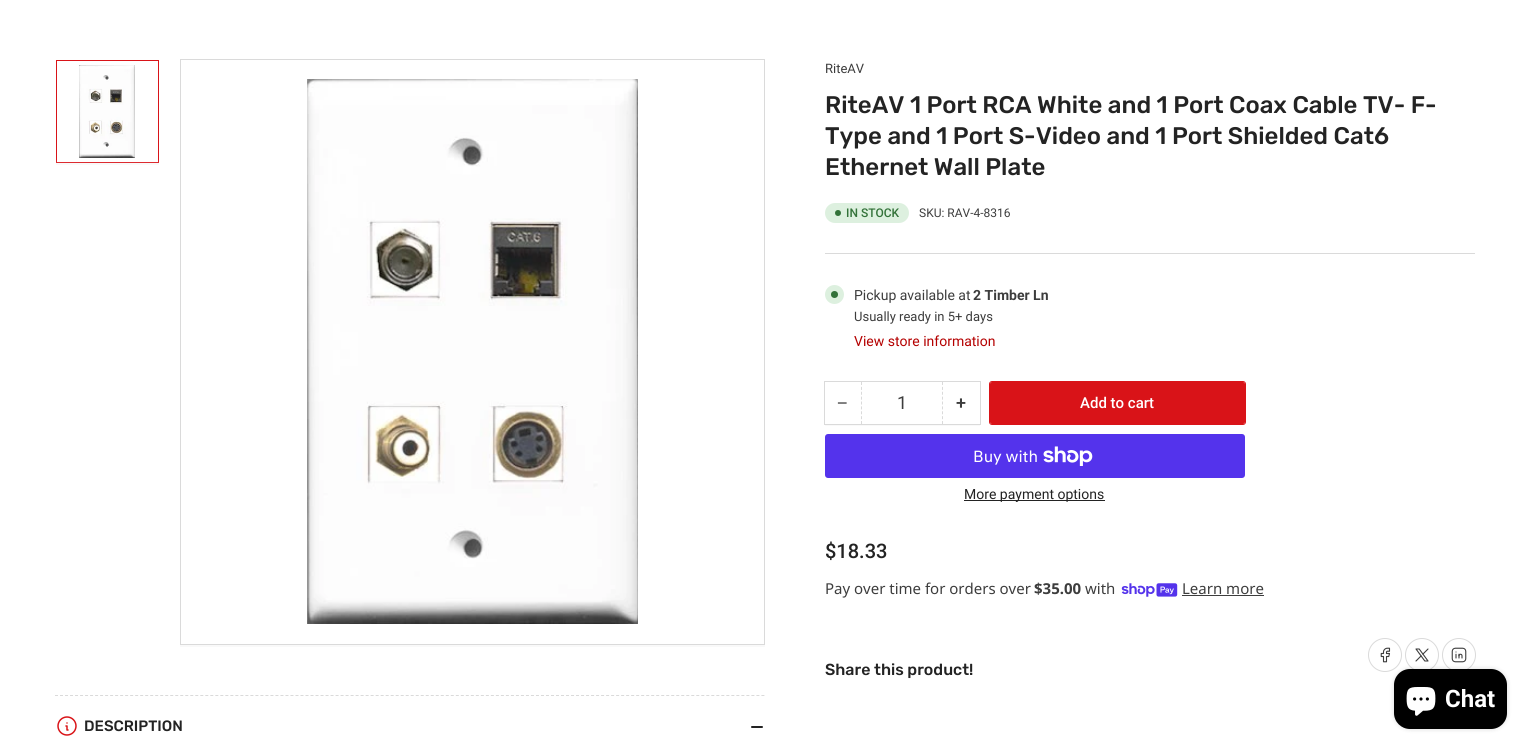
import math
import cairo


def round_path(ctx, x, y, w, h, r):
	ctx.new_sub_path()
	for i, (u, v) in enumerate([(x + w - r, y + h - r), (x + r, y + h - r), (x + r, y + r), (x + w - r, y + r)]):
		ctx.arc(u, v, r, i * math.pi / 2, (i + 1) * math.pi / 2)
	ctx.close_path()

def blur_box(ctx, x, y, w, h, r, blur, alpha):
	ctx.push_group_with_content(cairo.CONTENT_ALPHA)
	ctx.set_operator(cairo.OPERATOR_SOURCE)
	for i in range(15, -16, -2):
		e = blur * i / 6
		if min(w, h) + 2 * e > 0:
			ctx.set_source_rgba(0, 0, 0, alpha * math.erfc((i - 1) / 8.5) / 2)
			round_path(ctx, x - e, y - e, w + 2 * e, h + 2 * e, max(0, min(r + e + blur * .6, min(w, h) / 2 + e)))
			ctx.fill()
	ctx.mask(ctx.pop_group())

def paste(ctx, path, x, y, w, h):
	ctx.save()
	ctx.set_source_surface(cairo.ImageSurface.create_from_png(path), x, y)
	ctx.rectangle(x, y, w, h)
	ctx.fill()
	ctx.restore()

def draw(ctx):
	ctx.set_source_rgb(1, 1, 1)
	ctx.paint()
	ctx.set_source_rgb(0.973, 0.973, 0.973)
	ctx.rectangle(56, 163, 103, 2)
	ctx.fill()
	ctx.rectangle(56.5, 60.5, 102, 102)
	ctx.set_source_rgb(0.851, 0.078, 0.094)
	ctx.set_line_width(1)
	ctx.stroke()
	paste(ctx, 'media/1.png', 79, 65, 56, 93)
	gradient = cairo.LinearGradient(108, 194, 108, 159)
	gradient.add_color_stop_rgba(0, 1, 1, 1, 1)
	gradient.add_color_stop_rgba(1, 1, 1, 1, 0)
	ctx.set_source(gradient)
	ctx.rectangle(56, 160, 103, 3)
	ctx.fill()
	ctx.set_source_rgb(0.973, 0.973, 0.973)
	ctx.rectangle(180, 645, 585, 2)
	ctx.fill()
	ctx.rectangle(180.5, 59.5, 584, 585)
	ctx.set_source_rgb(0.855, 0.855, 0.855)
	ctx.stroke()
	paste(ctx, 'media/2.png', 307, 79, 331, 545)
	ctx.rectangle(825, 253, 650, 1)
	ctx.fill()
	ctx.select_font_face('Roboto')
	ctx.set_font_size(13)
	ctx.set_source_rgb(0.239, 0.239, 0.239)
	ctx.move_to(825, 73)
	ctx.show_text('RiteAV')
	ctx.select_font_face('Rubik Medium')
	ctx.set_font_size(24)
	ctx.set_source_rgb(0.137, 0.137, 0.137)
	for x, y, s in [
		(825, 113, 'RiteAV 1 Port RCA White and 1 Port Coax Cable TV- F-'),
		(825, 144, 'Type and 1 Port S-Video and 1 Port Shielded Cat6'),
		(825, 175, 'Ethernet Wall Plate'),
	]:
		ctx.move_to(x, y)
		ctx.show_text(s)
	ctx.set_source_rgb(0.867, 0.941, 0.875)
	round_path(ctx, 825, 203, 84, 20, 10)
	ctx.fill()
	ctx.set_source_rgb(0.2, 0.447, 0.224)
	ctx.arc(838, 213, 3, 0, 2 * math.pi)
	ctx.fill()
	ctx.select_font_face('Roboto Medium')
	ctx.set_font_size(12)
	ctx.move_to(846, 217)
	ctx.show_text('IN STOCK')
	ctx.select_font_face('Roboto')
	ctx.set_source_rgb(0.239, 0.239, 0.239)
	ctx.move_to(919, 217)
	ctx.show_text('SKU: RAV-4-8316')
	ctx.set_source_rgb(0.867, 0.941, 0.875)
	ctx.new_path()
	ctx.arc(834.5, 294.5, 9.5, 0, 2 * math.pi)
	ctx.fill()
	ctx.set_source_rgb(0.2, 0.447, 0.224)
	ctx.arc(834.5, 294.5, 3.5, 0, 2 * math.pi)
	ctx.fill()
	ctx.set_font_size(14)
	ctx.set_source_rgb(0.239, 0.239, 0.239)
	ctx.move_to(854, 300)
	ctx.show_text('Pickup available at')
	ctx.select_font_face('Roboto', cairo.FONT_SLANT_NORMAL, cairo.FONT_WEIGHT_BOLD)
	ctx.move_to(973, 300)
	ctx.show_text('2 Timber Ln')
	ctx.select_font_face('Roboto')
	ctx.set_font_size(13)
	ctx.move_to(854, 321)
	ctx.show_text('Usually ready in 5+ days')
	ctx.set_font_size(14)
	ctx.set_source_rgb(0.706, 0, 0)
	ctx.move_to(854, 346)
	ctx.show_text('View store information')
	ctx.set_source_rgb(0.973, 0.973, 0.973)
	ctx.rectangle(825, 425, 155, 1)
	ctx.fill()
	ctx.rectangle(824.5, 381.5, 156, 43)
	ctx.set_source_rgb(0.855, 0.855, 0.855)
	ctx.stroke()
	ctx.select_font_face('Liberation Sans')
	ctx.set_font_size(18)
	ctx.set_source_rgb(0.239, 0.239, 0.239)
	ctx.move_to(837, 409)
	ctx.show_text('−')
	ctx.new_path()
	ctx.move_to(942.5, 382)
	ctx.line_to(942.5, 424)
	ctx.set_source_rgb(0.855, 0.855, 0.855)
	ctx.set_dash([3, 1.88])
	ctx.stroke()
	ctx.new_path()
	ctx.move_to(861.5, 382)
	ctx.line_to(861.5, 424)
	ctx.stroke()
	ctx.select_font_face('Roboto')
	ctx.set_source_rgb(0.239, 0.239, 0.239)
	ctx.move_to(897, 409)
	ctx.show_text('1')
	ctx.select_font_face('Roboto Medium')
	ctx.move_to(956, 409)
	ctx.show_text('+')
	round_path(ctx, 989.5, 381.5, 256, 43, 2.5)
	ctx.set_source_rgb(0.851, 0.078, 0.094)
	ctx.set_dash([])
	ctx.stroke()
	round_path(ctx, 990, 382, 255, 42, 2)
	ctx.fill()
	ctx.set_font_size(15)
	ctx.set_source_rgb(1, 1, 1)
	ctx.move_to(1080, 408)
	ctx.show_text('Add to cart')
	ctx.set_source_rgb(0.329, 0.2, 0.922)
	round_path(ctx, 825, 434, 420, 44, 3)
	ctx.fill()
	ctx.select_font_face('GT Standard')
	ctx.set_font_size(16)
	ctx.set_source_rgb(1, 1, 1)
	ctx.move_to(973, 462)
	ctx.show_text('Buy with')
	paste(ctx, 'media/3.png', 1043, 446, 50, 20)
	ctx.set_source_rgb(0.137, 0.137, 0.137)
	ctx.rectangle(964, 500, 141, 1)
	ctx.fill()
	ctx.select_font_face('Roboto')
	ctx.set_font_size(14)
	ctx.move_to(964, 499)
	ctx.show_text('More payment options')
	ctx.select_font_face('Roboto Medium')
	ctx.set_font_size(20)
	ctx.move_to(825, 558)
	ctx.show_text('$18.33')
	ctx.select_font_face('Noto Sans')
	ctx.set_font_size(15)
	ctx.set_source_rgb(0.239, 0.239, 0.239)
	ctx.move_to(825, 594)
	ctx.show_text('Pay over time for orders over')
	ctx.select_font_face('Noto Sans', cairo.FONT_SLANT_NORMAL, cairo.FONT_WEIGHT_BOLD)
	ctx.move_to(1034, 594)
	ctx.show_text('$35.00')
	ctx.select_font_face('Noto Sans')
	ctx.move_to(1085, 594)
	ctx.show_text('with')
	paste(ctx, 'media/4.png', 1121, 583, 57, 14)
	ctx.move_to(1182, 594)
	ctx.show_text('Learn more')
	ctx.rectangle(1182, 595, 82, 1)
	ctx.fill()
	ctx.select_font_face('Rubik Medium')
	ctx.set_font_size(16)
	ctx.set_source_rgb(0.137, 0.137, 0.137)
	ctx.move_to(825, 675)
	ctx.show_text('Share this product!')
	ctx.new_path()
	ctx.arc(1385, 655, 16.5, 0, 2 * math.pi)
	ctx.set_source_rgb(0.855, 0.855, 0.855)
	ctx.stroke()
	paste(ctx, 'media/5.png', 1380, 647, 11, 16)
	ctx.arc(1422, 655, 16.5, 0, 2 * math.pi)
	ctx.stroke()
	paste(ctx, 'media/6.png', 1415, 648, 14, 14)
	ctx.arc(1459, 655, 16.5, 0, 2 * math.pi)
	ctx.stroke()
	paste(ctx, 'media/7.png', 1451, 647, 16, 16)
	ctx.new_path()
	ctx.move_to(55, 695.5)
	ctx.line_to(765, 695.5)
	ctx.set_dash([3, 2.01])
	ctx.stroke()
	paste(ctx, 'media/8.png', 57, 716, 20, 20)
	ctx.set_font_size(15)
	ctx.set_source_rgb(0.137, 0.137, 0.137)
	ctx.move_to(84, 731)
	ctx.show_text('DESCRIPTION')
	round_path(ctx, 751, 726, 8, 2, 1)
	ctx.fill()
	round_path(ctx, 756, 726, 7, 2, 1)
	ctx.fill()
	ctx.set_source_rgb(0, 0, 0)
	blur_box(ctx, 1394, 669, 113, 60, 16, 2.5, 0.15)
	ctx.set_source_rgb(0, 0, 0)
	round_path(ctx, 1394, 669, 113, 60, 16)
	ctx.fill()
	paste(ctx, 'media/9.png', 1406, 687, 30, 29)
	ctx.select_font_face('Roboto', cairo.FONT_SLANT_NORMAL, cairo.FONT_WEIGHT_BOLD)
	ctx.set_font_size(24)
	ctx.set_source_rgb(1, 1, 1)
	ctx.move_to(1445, 707)
	ctx.show_text('Chat')


surface = cairo.ImageSurface(cairo.FORMAT_RGB24, 1529, 750)
ctx = cairo.Context(surface)
options = cairo.FontOptions()
options.set_hint_metrics(cairo.HINT_METRICS_OFF)
options.set_hint_style(cairo.HINT_STYLE_NONE)
ctx.set_font_options(options)
ctx.set_miter_limit(4)
draw(ctx)
surface.write_to_png('image.png')
